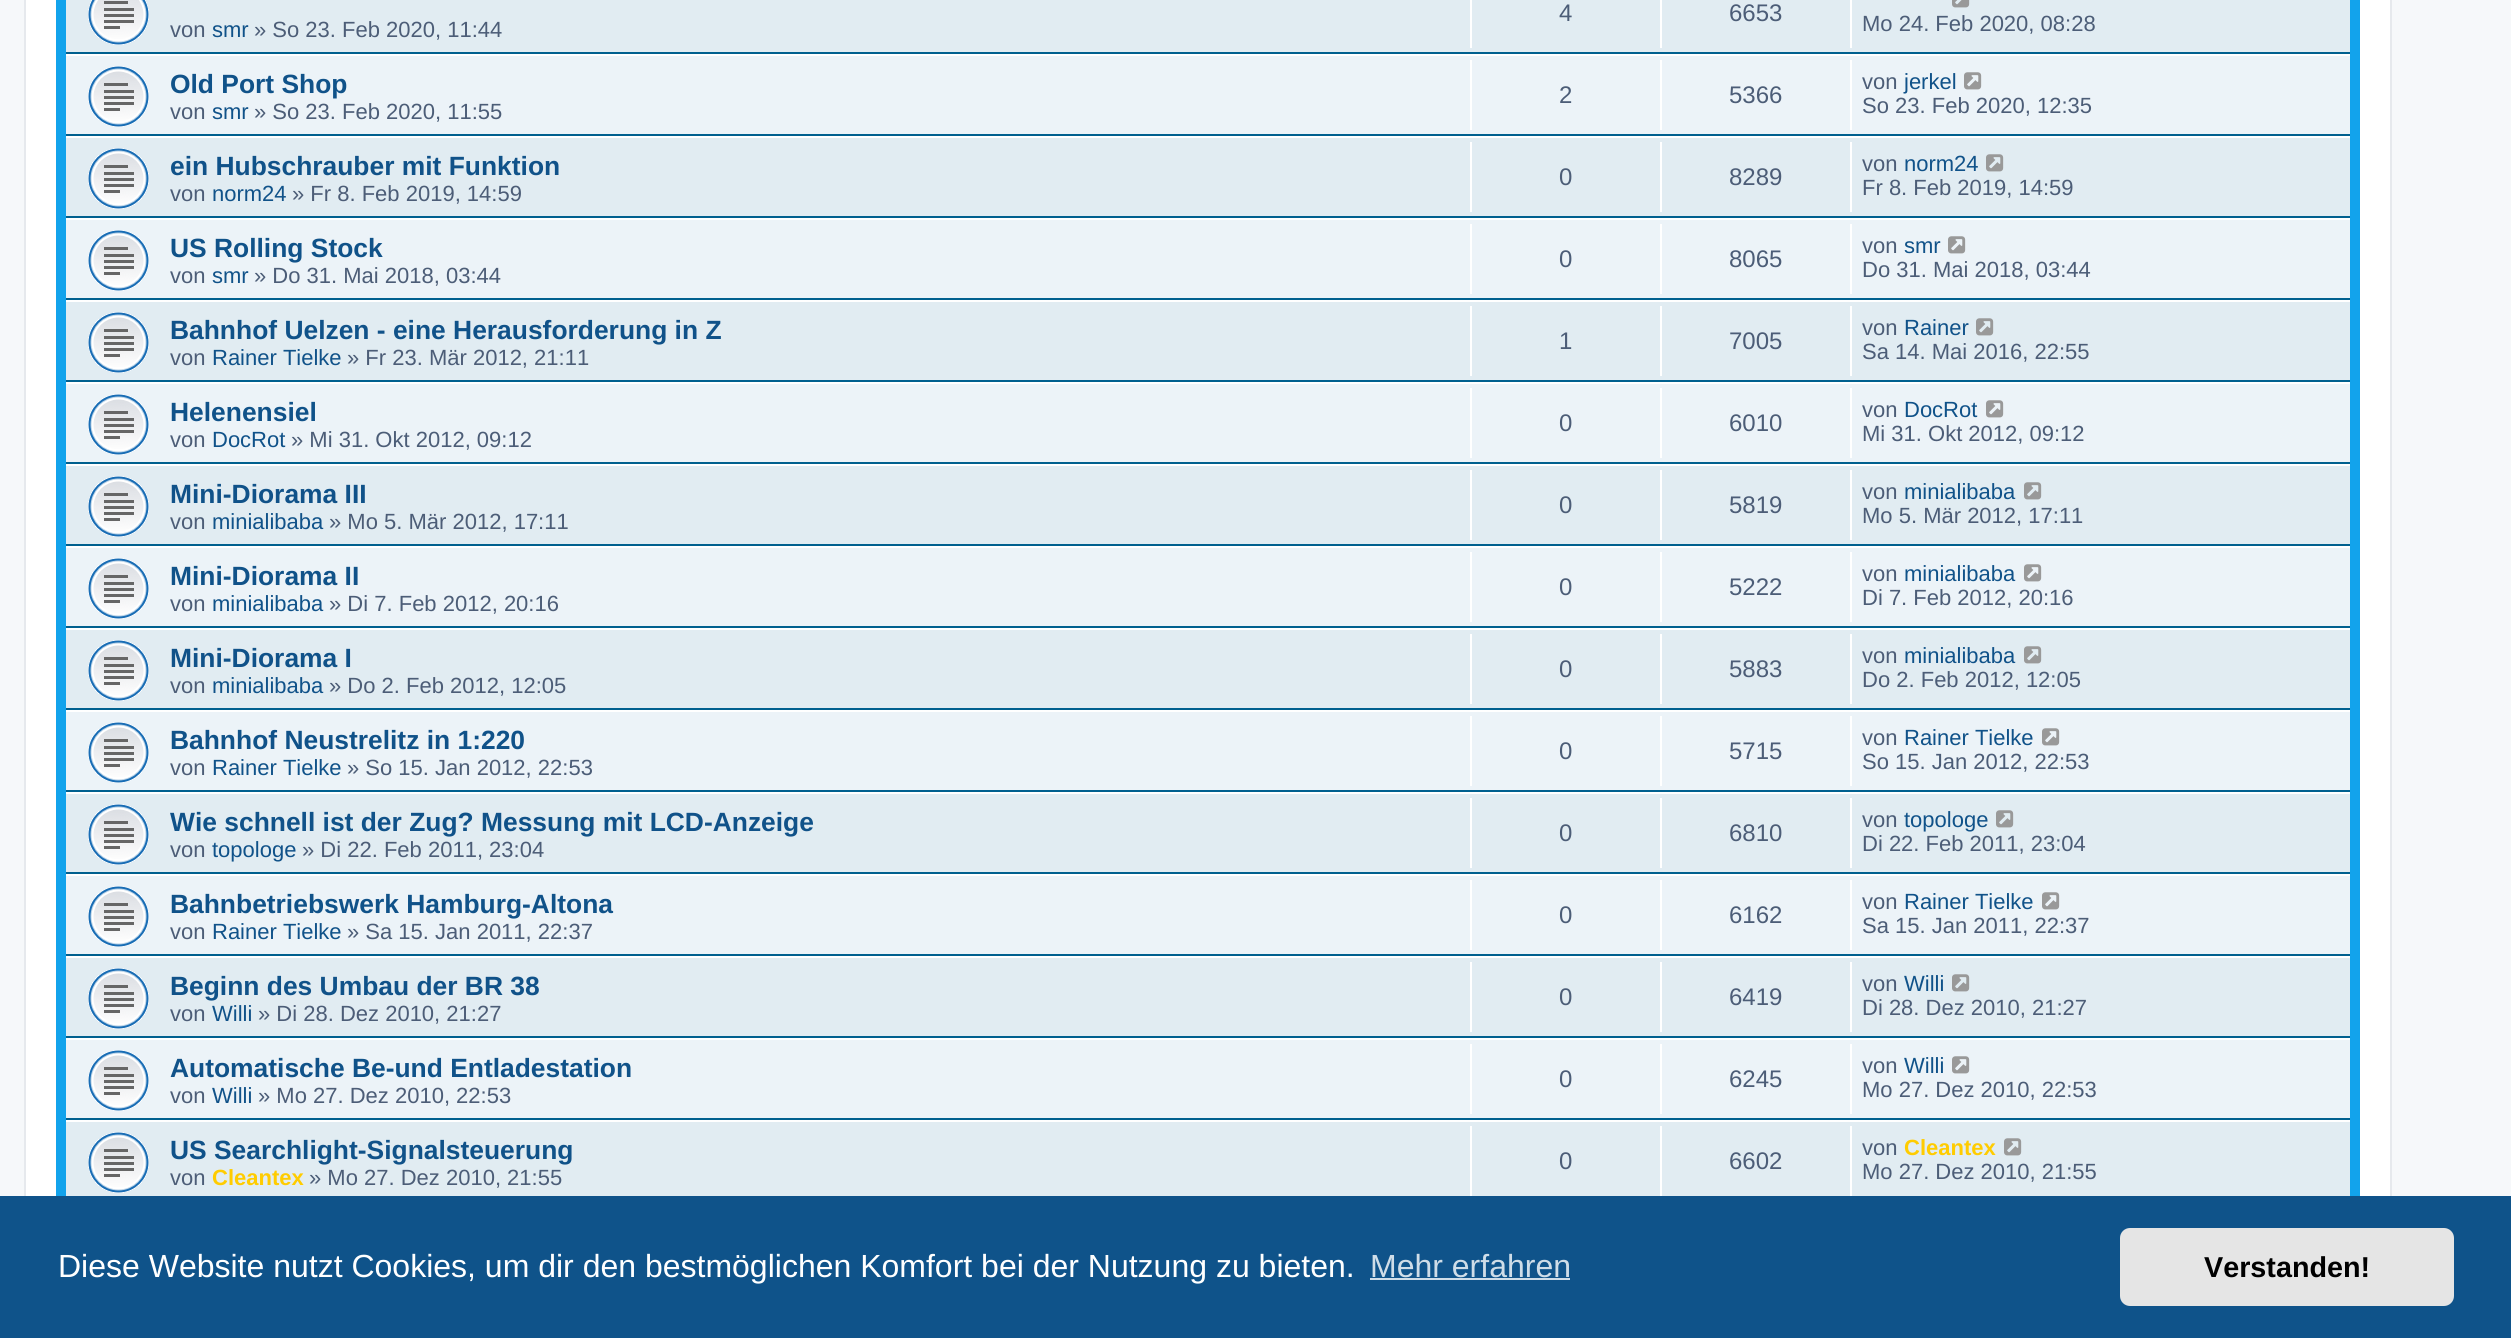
import math
import cairo


def round_path(ctx, x, y, w, h, r):
	ctx.new_sub_path()
	for i, (u, v) in enumerate([(x + w - r, y + h - r), (x + r, y + h - r), (x + r, y + r), (x + w - r, y + r)]):
		ctx.arc(u, v, r, i * math.pi / 2, (i + 1) * math.pi / 2)
	ctx.close_path()

def paste(ctx, path, x, y, w, h):
	ctx.save()
	ctx.set_source_surface(cairo.ImageSurface.create_from_png(path), x, y)
	ctx.rectangle(x, y, w, h)
	ctx.fill()
	ctx.restore()

def draw(ctx):
	ctx.set_source_rgb(0.961, 0.969, 0.98)
	ctx.paint()
	ctx.set_source_rgb(1, 1, 1)
	ctx.rectangle(26, 0, 2364, 1196)
	ctx.fill()
	ctx.rectangle(25, -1, 2366, 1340)
	ctx.set_source_rgb(0.902, 0.914, 0.929)
	ctx.stroke()
	ctx.set_source_rgb(0.071, 0.639, 0.922)
	ctx.rectangle(56, 0, 2304, 1196)
	ctx.fill()
	ctx.set_source_rgb(0.882, 0.922, 0.949)
	ctx.rectangle(66, 0, 2284, 52)
	ctx.fill()
	ctx.set_source_rgb(0, 0.376, 0.561)
	ctx.rectangle(66, 52, 2284, 2)
	ctx.fill()
	paste(ctx, 'media/1.png', 88, 0, 61, 45)
	ctx.set_source_rgb(1, 1, 1)
	ctx.rectangle(1470, 0, 2, 48)
	ctx.fill()
	ctx.select_font_face('Liberation Sans')
	ctx.set_font_size(24)
	ctx.set_source_rgb(0.298, 0.365, 0.467)
	ctx.move_to(1559, 21)
	ctx.show_text('4')
	ctx.set_source_rgb(1, 1, 1)
	ctx.rectangle(1660, 0, 2, 48)
	ctx.fill()
	ctx.set_source_rgb(0.298, 0.365, 0.467)
	ctx.move_to(1729, 21)
	ctx.show_text('6653')
	ctx.set_font_size(22)
	ctx.move_to(170, 37)
	ctx.show_text('von')
	ctx.set_source_rgb(0.063, 0.322, 0.537)
	ctx.move_to(212, 37)
	ctx.show_text('smr')
	ctx.set_source_rgb(0.298, 0.365, 0.467)
	ctx.move_to(254, 37)
	ctx.show_text('» So 23. Feb 2020, 11:44')
	ctx.set_source_rgb(1, 1, 1)
	ctx.rectangle(1850, 0, 2, 48)
	ctx.fill()
	paste(ctx, 'media/2.png', 1952, 0, 18, 8)
	ctx.set_source_rgb(0.298, 0.365, 0.467)
	ctx.move_to(1862, 31)
	ctx.show_text('Mo 24. Feb 2020, 08:28')
	ctx.set_source_rgb(0.925, 0.953, 0.969)
	ctx.rectangle(66, 56, 2284, 78)
	ctx.fill()
	ctx.set_source_rgb(1, 1, 1)
	ctx.rectangle(66, 54, 2284, 2)
	ctx.fill()
	ctx.set_source_rgb(0, 0.376, 0.561)
	ctx.rectangle(66, 134, 2284, 2)
	ctx.fill()
	paste(ctx, 'media/3.png', 88, 66, 61, 61)
	ctx.select_font_face('Liberation Sans', cairo.FONT_SLANT_NORMAL, cairo.FONT_WEIGHT_BOLD)
	ctx.set_font_size(26.4)
	ctx.set_source_rgb(0.063, 0.322, 0.537)
	ctx.move_to(170, 93)
	ctx.show_text('Old Port Shop')
	ctx.select_font_face('Liberation Sans')
	ctx.set_font_size(22)
	ctx.set_source_rgb(0.298, 0.365, 0.467)
	ctx.move_to(170, 119)
	ctx.show_text('von')
	ctx.set_source_rgb(0.063, 0.322, 0.537)
	ctx.move_to(212, 119)
	ctx.show_text('smr')
	ctx.set_source_rgb(0.298, 0.365, 0.467)
	ctx.move_to(254, 119)
	ctx.show_text('» So 23. Feb 2020, 11:55')
	ctx.set_source_rgb(1, 1, 1)
	ctx.rectangle(1470, 60, 2, 70)
	ctx.fill()
	ctx.set_font_size(24)
	ctx.set_source_rgb(0.298, 0.365, 0.467)
	ctx.move_to(1559, 103)
	ctx.show_text('2')
	ctx.set_source_rgb(1, 1, 1)
	ctx.rectangle(1660, 60, 2, 70)
	ctx.fill()
	ctx.set_source_rgb(0.298, 0.365, 0.467)
	ctx.move_to(1729, 103)
	ctx.show_text('5366')
	ctx.set_source_rgb(1, 1, 1)
	ctx.rectangle(1850, 60, 2, 70)
	ctx.fill()
	ctx.set_font_size(22)
	ctx.set_source_rgb(0.298, 0.365, 0.467)
	ctx.move_to(1862, 89)
	ctx.show_text('von')
	ctx.set_source_rgb(0.063, 0.322, 0.537)
	ctx.move_to(1904, 89)
	ctx.show_text('jerkel')
	paste(ctx, 'media/4.png', 1964, 72, 18, 18)
	ctx.set_source_rgb(0.298, 0.365, 0.467)
	ctx.move_to(1862, 113)
	ctx.show_text('So 23. Feb 2020, 12:35')
	ctx.set_source_rgb(0.882, 0.922, 0.949)
	ctx.rectangle(66, 138, 2284, 78)
	ctx.fill()
	ctx.set_source_rgb(1, 1, 1)
	ctx.rectangle(66, 136, 2284, 2)
	ctx.fill()
	ctx.set_source_rgb(0, 0.376, 0.561)
	ctx.rectangle(66, 216, 2284, 2)
	ctx.fill()
	paste(ctx, 'media/5.png', 88, 148, 61, 61)
	ctx.select_font_face('Liberation Sans', cairo.FONT_SLANT_NORMAL, cairo.FONT_WEIGHT_BOLD)
	ctx.set_font_size(26.4)
	ctx.set_source_rgb(0.063, 0.322, 0.537)
	ctx.move_to(170, 175)
	ctx.show_text('ein Hubschrauber mit Funktion')
	ctx.select_font_face('Liberation Sans')
	ctx.set_font_size(22)
	ctx.set_source_rgb(0.298, 0.365, 0.467)
	ctx.move_to(170, 201)
	ctx.show_text('von')
	ctx.set_source_rgb(0.063, 0.322, 0.537)
	ctx.move_to(212, 201)
	ctx.show_text('norm24')
	ctx.set_source_rgb(0.298, 0.365, 0.467)
	ctx.move_to(292, 201)
	ctx.show_text('» Fr 8. Feb 2019, 14:59')
	ctx.set_source_rgb(1, 1, 1)
	ctx.rectangle(1470, 142, 2, 70)
	ctx.fill()
	ctx.set_font_size(24)
	ctx.set_source_rgb(0.298, 0.365, 0.467)
	ctx.move_to(1559, 185)
	ctx.show_text('0')
	ctx.set_source_rgb(1, 1, 1)
	ctx.rectangle(1660, 142, 2, 70)
	ctx.fill()
	ctx.set_source_rgb(0.298, 0.365, 0.467)
	ctx.move_to(1729, 185)
	ctx.show_text('8289')
	ctx.set_source_rgb(1, 1, 1)
	ctx.rectangle(1850, 142, 2, 70)
	ctx.fill()
	ctx.set_font_size(22)
	ctx.set_source_rgb(0.298, 0.365, 0.467)
	ctx.move_to(1862, 171)
	ctx.show_text('von')
	ctx.set_source_rgb(0.063, 0.322, 0.537)
	ctx.move_to(1904, 171)
	ctx.show_text('norm24')
	paste(ctx, 'media/6.png', 1986, 154, 18, 18)
	ctx.set_source_rgb(0.298, 0.365, 0.467)
	ctx.move_to(1862, 195)
	ctx.show_text('Fr 8. Feb 2019, 14:59')
	ctx.set_source_rgb(0.925, 0.953, 0.969)
	ctx.rectangle(66, 220, 2284, 78)
	ctx.fill()
	ctx.set_source_rgb(1, 1, 1)
	ctx.rectangle(66, 218, 2284, 2)
	ctx.fill()
	ctx.set_source_rgb(0, 0.376, 0.561)
	ctx.rectangle(66, 298, 2284, 2)
	ctx.fill()
	paste(ctx, 'media/3.png', 88, 230, 61, 61)
	ctx.select_font_face('Liberation Sans', cairo.FONT_SLANT_NORMAL, cairo.FONT_WEIGHT_BOLD)
	ctx.set_font_size(26.4)
	ctx.set_source_rgb(0.063, 0.322, 0.537)
	ctx.move_to(170, 257)
	ctx.show_text('US Rolling Stock')
	ctx.select_font_face('Liberation Sans')
	ctx.set_font_size(22)
	ctx.set_source_rgb(0.298, 0.365, 0.467)
	ctx.move_to(170, 283)
	ctx.show_text('von')
	ctx.set_source_rgb(0.063, 0.322, 0.537)
	ctx.move_to(212, 283)
	ctx.show_text('smr')
	ctx.set_source_rgb(0.298, 0.365, 0.467)
	ctx.move_to(254, 283)
	ctx.show_text('» Do 31. Mai 2018, 03:44')
	ctx.set_source_rgb(1, 1, 1)
	ctx.rectangle(1470, 224, 2, 70)
	ctx.fill()
	ctx.set_font_size(24)
	ctx.set_source_rgb(0.298, 0.365, 0.467)
	ctx.move_to(1559, 267)
	ctx.show_text('0')
	ctx.set_source_rgb(1, 1, 1)
	ctx.rectangle(1660, 224, 2, 70)
	ctx.fill()
	ctx.set_source_rgb(0.298, 0.365, 0.467)
	ctx.move_to(1729, 267)
	ctx.show_text('8065')
	ctx.set_source_rgb(1, 1, 1)
	ctx.rectangle(1850, 224, 2, 70)
	ctx.fill()
	ctx.set_font_size(22)
	ctx.set_source_rgb(0.298, 0.365, 0.467)
	ctx.move_to(1862, 253)
	ctx.show_text('von')
	ctx.set_source_rgb(0.063, 0.322, 0.537)
	ctx.move_to(1904, 253)
	ctx.show_text('smr')
	paste(ctx, 'media/4.png', 1948, 236, 18, 18)
	ctx.set_source_rgb(0.298, 0.365, 0.467)
	ctx.move_to(1862, 277)
	ctx.show_text('Do 31. Mai 2018, 03:44')
	ctx.set_source_rgb(0.882, 0.922, 0.949)
	ctx.rectangle(66, 302, 2284, 78)
	ctx.fill()
	ctx.set_source_rgb(1, 1, 1)
	ctx.rectangle(66, 300, 2284, 2)
	ctx.fill()
	ctx.set_source_rgb(0, 0.376, 0.561)
	ctx.rectangle(66, 380, 2284, 2)
	ctx.fill()
	paste(ctx, 'media/5.png', 88, 312, 61, 61)
	ctx.select_font_face('Liberation Sans', cairo.FONT_SLANT_NORMAL, cairo.FONT_WEIGHT_BOLD)
	ctx.set_font_size(26.4)
	ctx.set_source_rgb(0.063, 0.322, 0.537)
	ctx.move_to(170, 339)
	ctx.show_text('Bahnhof Uelzen - eine Herausforderung in Z')
	ctx.select_font_face('Liberation Sans')
	ctx.set_font_size(22)
	ctx.set_source_rgb(0.298, 0.365, 0.467)
	ctx.move_to(170, 365)
	ctx.show_text('von')
	ctx.set_source_rgb(0.063, 0.322, 0.537)
	ctx.move_to(212, 365)
	ctx.show_text('Rainer Tielke')
	ctx.set_source_rgb(0.298, 0.365, 0.467)
	ctx.move_to(347, 365)
	ctx.show_text('» Fr 23. Mär 2012, 21:11')
	ctx.set_source_rgb(1, 1, 1)
	ctx.rectangle(1470, 306, 2, 70)
	ctx.fill()
	ctx.set_font_size(24)
	ctx.set_source_rgb(0.298, 0.365, 0.467)
	ctx.move_to(1559, 349)
	ctx.show_text('1')
	ctx.set_source_rgb(1, 1, 1)
	ctx.rectangle(1660, 306, 2, 70)
	ctx.fill()
	ctx.set_source_rgb(0.298, 0.365, 0.467)
	ctx.move_to(1729, 349)
	ctx.show_text('7005')
	ctx.set_source_rgb(1, 1, 1)
	ctx.rectangle(1850, 306, 2, 70)
	ctx.fill()
	ctx.set_font_size(22)
	ctx.set_source_rgb(0.298, 0.365, 0.467)
	ctx.move_to(1862, 335)
	ctx.show_text('von')
	ctx.set_source_rgb(0.063, 0.322, 0.537)
	ctx.move_to(1904, 335)
	ctx.show_text('Rainer')
	paste(ctx, 'media/6.png', 1976, 318, 18, 18)
	ctx.set_source_rgb(0.298, 0.365, 0.467)
	ctx.move_to(1862, 359)
	ctx.show_text('Sa 14. Mai 2016, 22:55')
	ctx.set_source_rgb(0.925, 0.953, 0.969)
	ctx.rectangle(66, 384, 2284, 78)
	ctx.fill()
	ctx.set_source_rgb(1, 1, 1)
	ctx.rectangle(66, 382, 2284, 2)
	ctx.fill()
	ctx.set_source_rgb(0, 0.376, 0.561)
	ctx.rectangle(66, 462, 2284, 2)
	ctx.fill()
	paste(ctx, 'media/3.png', 88, 394, 61, 61)
	ctx.select_font_face('Liberation Sans', cairo.FONT_SLANT_NORMAL, cairo.FONT_WEIGHT_BOLD)
	ctx.set_font_size(26.4)
	ctx.set_source_rgb(0.063, 0.322, 0.537)
	ctx.move_to(170, 421)
	ctx.show_text('Helenensiel')
	ctx.select_font_face('Liberation Sans')
	ctx.set_font_size(22)
	ctx.set_source_rgb(0.298, 0.365, 0.467)
	ctx.move_to(170, 447)
	ctx.show_text('von')
	ctx.set_source_rgb(0.063, 0.322, 0.537)
	ctx.move_to(212, 447)
	ctx.show_text('DocRot')
	ctx.set_source_rgb(0.298, 0.365, 0.467)
	ctx.move_to(291, 447)
	ctx.show_text('» Mi 31. Okt 2012, 09:12')
	ctx.set_source_rgb(1, 1, 1)
	ctx.rectangle(1470, 388, 2, 70)
	ctx.fill()
	ctx.set_font_size(24)
	ctx.set_source_rgb(0.298, 0.365, 0.467)
	ctx.move_to(1559, 431)
	ctx.show_text('0')
	ctx.set_source_rgb(1, 1, 1)
	ctx.rectangle(1660, 388, 2, 70)
	ctx.fill()
	ctx.set_source_rgb(0.298, 0.365, 0.467)
	ctx.move_to(1729, 431)
	ctx.show_text('6010')
	ctx.set_source_rgb(1, 1, 1)
	ctx.rectangle(1850, 388, 2, 70)
	ctx.fill()
	ctx.set_font_size(22)
	ctx.set_source_rgb(0.298, 0.365, 0.467)
	ctx.move_to(1862, 417)
	ctx.show_text('von')
	ctx.set_source_rgb(0.063, 0.322, 0.537)
	ctx.move_to(1904, 417)
	ctx.show_text('DocRot')
	paste(ctx, 'media/4.png', 1986, 400, 18, 18)
	ctx.set_source_rgb(0.298, 0.365, 0.467)
	ctx.move_to(1862, 441)
	ctx.show_text('Mi 31. Okt 2012, 09:12')
	ctx.set_source_rgb(0.882, 0.922, 0.949)
	ctx.rectangle(66, 466, 2284, 78)
	ctx.fill()
	ctx.set_source_rgb(1, 1, 1)
	ctx.rectangle(66, 464, 2284, 2)
	ctx.fill()
	ctx.set_source_rgb(0, 0.376, 0.561)
	ctx.rectangle(66, 544, 2284, 2)
	ctx.fill()
	paste(ctx, 'media/5.png', 88, 476, 61, 61)
	ctx.select_font_face('Liberation Sans', cairo.FONT_SLANT_NORMAL, cairo.FONT_WEIGHT_BOLD)
	ctx.set_font_size(26.4)
	ctx.set_source_rgb(0.063, 0.322, 0.537)
	ctx.move_to(170, 503)
	ctx.show_text('Mini-Diorama III')
	ctx.select_font_face('Liberation Sans')
	ctx.set_font_size(22)
	ctx.set_source_rgb(0.298, 0.365, 0.467)
	ctx.move_to(170, 529)
	ctx.show_text('von')
	ctx.set_source_rgb(0.063, 0.322, 0.537)
	ctx.move_to(212, 529)
	ctx.show_text('minialibaba')
	ctx.set_source_rgb(0.298, 0.365, 0.467)
	ctx.move_to(329, 529)
	ctx.show_text('» Mo 5. Mär 2012, 17:11')
	ctx.set_source_rgb(1, 1, 1)
	ctx.rectangle(1470, 470, 2, 70)
	ctx.fill()
	ctx.set_font_size(24)
	ctx.set_source_rgb(0.298, 0.365, 0.467)
	ctx.move_to(1559, 513)
	ctx.show_text('0')
	ctx.set_source_rgb(1, 1, 1)
	ctx.rectangle(1660, 470, 2, 70)
	ctx.fill()
	ctx.set_source_rgb(0.298, 0.365, 0.467)
	ctx.move_to(1729, 513)
	ctx.show_text('5819')
	ctx.set_source_rgb(1, 1, 1)
	ctx.rectangle(1850, 470, 2, 70)
	ctx.fill()
	ctx.set_font_size(22)
	ctx.set_source_rgb(0.298, 0.365, 0.467)
	ctx.move_to(1862, 499)
	ctx.show_text('von')
	ctx.set_source_rgb(0.063, 0.322, 0.537)
	ctx.move_to(1904, 499)
	ctx.show_text('minialibaba')
	paste(ctx, 'media/6.png', 2024, 482, 18, 18)
	ctx.set_source_rgb(0.298, 0.365, 0.467)
	ctx.move_to(1862, 523)
	ctx.show_text('Mo 5. Mär 2012, 17:11')
	ctx.set_source_rgb(0.925, 0.953, 0.969)
	ctx.rectangle(66, 548, 2284, 78)
	ctx.fill()
	ctx.set_source_rgb(1, 1, 1)
	ctx.rectangle(66, 546, 2284, 2)
	ctx.fill()
	ctx.set_source_rgb(0, 0.376, 0.561)
	ctx.rectangle(66, 626, 2284, 2)
	ctx.fill()
	paste(ctx, 'media/3.png', 88, 558, 61, 61)
	ctx.select_font_face('Liberation Sans', cairo.FONT_SLANT_NORMAL, cairo.FONT_WEIGHT_BOLD)
	ctx.set_font_size(26.4)
	ctx.set_source_rgb(0.063, 0.322, 0.537)
	ctx.move_to(170, 585)
	ctx.show_text('Mini-Diorama II')
	ctx.select_font_face('Liberation Sans')
	ctx.set_font_size(22)
	ctx.set_source_rgb(0.298, 0.365, 0.467)
	ctx.move_to(170, 611)
	ctx.show_text('von')
	ctx.set_source_rgb(0.063, 0.322, 0.537)
	ctx.move_to(212, 611)
	ctx.show_text('minialibaba')
	ctx.set_source_rgb(0.298, 0.365, 0.467)
	ctx.move_to(329, 611)
	ctx.show_text('» Di 7. Feb 2012, 20:16')
	ctx.set_source_rgb(1, 1, 1)
	ctx.rectangle(1470, 552, 2, 70)
	ctx.fill()
	ctx.set_font_size(24)
	ctx.set_source_rgb(0.298, 0.365, 0.467)
	ctx.move_to(1559, 595)
	ctx.show_text('0')
	ctx.set_source_rgb(1, 1, 1)
	ctx.rectangle(1660, 552, 2, 70)
	ctx.fill()
	ctx.set_source_rgb(0.298, 0.365, 0.467)
	ctx.move_to(1729, 595)
	ctx.show_text('5222')
	ctx.set_source_rgb(1, 1, 1)
	ctx.rectangle(1850, 552, 2, 70)
	ctx.fill()
	ctx.set_font_size(22)
	ctx.set_source_rgb(0.298, 0.365, 0.467)
	ctx.move_to(1862, 581)
	ctx.show_text('von')
	ctx.set_source_rgb(0.063, 0.322, 0.537)
	ctx.move_to(1904, 581)
	ctx.show_text('minialibaba')
	paste(ctx, 'media/4.png', 2024, 564, 18, 18)
	ctx.set_source_rgb(0.298, 0.365, 0.467)
	ctx.move_to(1862, 605)
	ctx.show_text('Di 7. Feb 2012, 20:16')
	ctx.set_source_rgb(0.882, 0.922, 0.949)
	ctx.rectangle(66, 630, 2284, 78)
	ctx.fill()
	ctx.set_source_rgb(1, 1, 1)
	ctx.rectangle(66, 628, 2284, 2)
	ctx.fill()
	ctx.set_source_rgb(0, 0.376, 0.561)
	ctx.rectangle(66, 708, 2284, 2)
	ctx.fill()
	paste(ctx, 'media/5.png', 88, 640, 61, 61)
	ctx.select_font_face('Liberation Sans', cairo.FONT_SLANT_NORMAL, cairo.FONT_WEIGHT_BOLD)
	ctx.set_font_size(26.4)
	ctx.set_source_rgb(0.063, 0.322, 0.537)
	ctx.move_to(170, 667)
	ctx.show_text('Mini-Diorama I')
	ctx.select_font_face('Liberation Sans')
	ctx.set_font_size(22)
	ctx.set_source_rgb(0.298, 0.365, 0.467)
	ctx.move_to(170, 693)
	ctx.show_text('von')
	ctx.set_source_rgb(0.063, 0.322, 0.537)
	ctx.move_to(212, 693)
	ctx.show_text('minialibaba')
	ctx.set_source_rgb(0.298, 0.365, 0.467)
	ctx.move_to(329, 693)
	ctx.show_text('» Do 2. Feb 2012, 12:05')
	ctx.set_source_rgb(1, 1, 1)
	ctx.rectangle(1470, 634, 2, 70)
	ctx.fill()
	ctx.set_font_size(24)
	ctx.set_source_rgb(0.298, 0.365, 0.467)
	ctx.move_to(1559, 677)
	ctx.show_text('0')
	ctx.set_source_rgb(1, 1, 1)
	ctx.rectangle(1660, 634, 2, 70)
	ctx.fill()
	ctx.set_source_rgb(0.298, 0.365, 0.467)
	ctx.move_to(1729, 677)
	ctx.show_text('5883')
	ctx.set_source_rgb(1, 1, 1)
	ctx.rectangle(1850, 634, 2, 70)
	ctx.fill()
	ctx.set_font_size(22)
	ctx.set_source_rgb(0.298, 0.365, 0.467)
	ctx.move_to(1862, 663)
	ctx.show_text('von')
	ctx.set_source_rgb(0.063, 0.322, 0.537)
	ctx.move_to(1904, 663)
	ctx.show_text('minialibaba')
	paste(ctx, 'media/6.png', 2024, 646, 18, 18)
	ctx.set_source_rgb(0.298, 0.365, 0.467)
	ctx.move_to(1862, 687)
	ctx.show_text('Do 2. Feb 2012, 12:05')
	ctx.set_source_rgb(0.925, 0.953, 0.969)
	ctx.rectangle(66, 712, 2284, 78)
	ctx.fill()
	ctx.set_source_rgb(1, 1, 1)
	ctx.rectangle(66, 710, 2284, 2)
	ctx.fill()
	ctx.set_source_rgb(0, 0.376, 0.561)
	ctx.rectangle(66, 790, 2284, 2)
	ctx.fill()
	paste(ctx, 'media/3.png', 88, 722, 61, 61)
	ctx.select_font_face('Liberation Sans', cairo.FONT_SLANT_NORMAL, cairo.FONT_WEIGHT_BOLD)
	ctx.set_font_size(26.4)
	ctx.set_source_rgb(0.063, 0.322, 0.537)
	ctx.move_to(170, 749)
	ctx.show_text('Bahnhof Neustrelitz in 1:220')
	ctx.select_font_face('Liberation Sans')
	ctx.set_font_size(22)
	ctx.set_source_rgb(0.298, 0.365, 0.467)
	ctx.move_to(170, 775)
	ctx.show_text('von')
	ctx.set_source_rgb(0.063, 0.322, 0.537)
	ctx.move_to(212, 775)
	ctx.show_text('Rainer Tielke')
	ctx.set_source_rgb(0.298, 0.365, 0.467)
	ctx.move_to(347, 775)
	ctx.show_text('» So 15. Jan 2012, 22:53')
	ctx.set_source_rgb(1, 1, 1)
	ctx.rectangle(1470, 716, 2, 70)
	ctx.fill()
	ctx.set_font_size(24)
	ctx.set_source_rgb(0.298, 0.365, 0.467)
	ctx.move_to(1559, 759)
	ctx.show_text('0')
	ctx.set_source_rgb(1, 1, 1)
	ctx.rectangle(1660, 716, 2, 70)
	ctx.fill()
	ctx.set_source_rgb(0.298, 0.365, 0.467)
	ctx.move_to(1729, 759)
	ctx.show_text('5715')
	ctx.set_source_rgb(1, 1, 1)
	ctx.rectangle(1850, 716, 2, 70)
	ctx.fill()
	ctx.set_font_size(22)
	ctx.set_source_rgb(0.298, 0.365, 0.467)
	ctx.move_to(1862, 745)
	ctx.show_text('von')
	ctx.set_source_rgb(0.063, 0.322, 0.537)
	ctx.move_to(1904, 745)
	ctx.show_text('Rainer Tielke')
	paste(ctx, 'media/4.png', 2042, 728, 18, 18)
	ctx.set_source_rgb(0.298, 0.365, 0.467)
	ctx.move_to(1862, 769)
	ctx.show_text('So 15. Jan 2012, 22:53')
	ctx.set_source_rgb(0.882, 0.922, 0.949)
	ctx.rectangle(66, 794, 2284, 78)
	ctx.fill()
	ctx.set_source_rgb(1, 1, 1)
	ctx.rectangle(66, 792, 2284, 2)
	ctx.fill()
	ctx.set_source_rgb(0, 0.376, 0.561)
	ctx.rectangle(66, 872, 2284, 2)
	ctx.fill()
	paste(ctx, 'media/5.png', 88, 804, 61, 61)
	ctx.select_font_face('Liberation Sans', cairo.FONT_SLANT_NORMAL, cairo.FONT_WEIGHT_BOLD)
	ctx.set_font_size(26.4)
	ctx.set_source_rgb(0.063, 0.322, 0.537)
	ctx.move_to(170, 831)
	ctx.show_text('Wie schnell ist der Zug? Messung mit LCD-Anzeige')
	ctx.select_font_face('Liberation Sans')
	ctx.set_font_size(22)
	ctx.set_source_rgb(0.298, 0.365, 0.467)
	ctx.move_to(170, 857)
	ctx.show_text('von')
	ctx.set_source_rgb(0.063, 0.322, 0.537)
	ctx.move_to(212, 857)
	ctx.show_text('topologe')
	ctx.set_source_rgb(0.298, 0.365, 0.467)
	ctx.move_to(302, 857)
	ctx.show_text('» Di 22. Feb 2011, 23:04')
	ctx.set_source_rgb(1, 1, 1)
	ctx.rectangle(1470, 798, 2, 70)
	ctx.fill()
	ctx.set_font_size(24)
	ctx.set_source_rgb(0.298, 0.365, 0.467)
	ctx.move_to(1559, 841)
	ctx.show_text('0')
	ctx.set_source_rgb(1, 1, 1)
	ctx.rectangle(1660, 798, 2, 70)
	ctx.fill()
	ctx.set_source_rgb(0.298, 0.365, 0.467)
	ctx.move_to(1729, 841)
	ctx.show_text('6810')
	ctx.set_source_rgb(1, 1, 1)
	ctx.rectangle(1850, 798, 2, 70)
	ctx.fill()
	ctx.set_font_size(22)
	ctx.set_source_rgb(0.298, 0.365, 0.467)
	ctx.move_to(1862, 827)
	ctx.show_text('von')
	ctx.set_source_rgb(0.063, 0.322, 0.537)
	ctx.move_to(1904, 827)
	ctx.show_text('topologe')
	paste(ctx, 'media/6.png', 1996, 810, 18, 18)
	ctx.set_source_rgb(0.298, 0.365, 0.467)
	ctx.move_to(1862, 851)
	ctx.show_text('Di 22. Feb 2011, 23:04')
	ctx.set_source_rgb(0.925, 0.953, 0.969)
	ctx.rectangle(66, 876, 2284, 78)
	ctx.fill()
	ctx.set_source_rgb(1, 1, 1)
	ctx.rectangle(66, 874, 2284, 2)
	ctx.fill()
	ctx.set_source_rgb(0, 0.376, 0.561)
	ctx.rectangle(66, 954, 2284, 2)
	ctx.fill()
	paste(ctx, 'media/3.png', 88, 886, 61, 61)
	ctx.select_font_face('Liberation Sans', cairo.FONT_SLANT_NORMAL, cairo.FONT_WEIGHT_BOLD)
	ctx.set_font_size(26.4)
	ctx.set_source_rgb(0.063, 0.322, 0.537)
	ctx.move_to(170, 913)
	ctx.show_text('Bahnbetriebswerk Hamburg-Altona')
	ctx.select_font_face('Liberation Sans')
	ctx.set_font_size(22)
	ctx.set_source_rgb(0.298, 0.365, 0.467)
	ctx.move_to(170, 939)
	ctx.show_text('von')
	ctx.set_source_rgb(0.063, 0.322, 0.537)
	ctx.move_to(212, 939)
	ctx.show_text('Rainer Tielke')
	ctx.set_source_rgb(0.298, 0.365, 0.467)
	ctx.move_to(347, 939)
	ctx.show_text('» Sa 15. Jan 2011, 22:37')
	ctx.set_source_rgb(1, 1, 1)
	ctx.rectangle(1470, 880, 2, 70)
	ctx.fill()
	ctx.set_font_size(24)
	ctx.set_source_rgb(0.298, 0.365, 0.467)
	ctx.move_to(1559, 923)
	ctx.show_text('0')
	ctx.set_source_rgb(1, 1, 1)
	ctx.rectangle(1660, 880, 2, 70)
	ctx.fill()
	ctx.set_source_rgb(0.298, 0.365, 0.467)
	ctx.move_to(1729, 923)
	ctx.show_text('6162')
	ctx.set_source_rgb(1, 1, 1)
	ctx.rectangle(1850, 880, 2, 70)
	ctx.fill()
	ctx.set_font_size(22)
	ctx.set_source_rgb(0.298, 0.365, 0.467)
	ctx.move_to(1862, 909)
	ctx.show_text('von')
	ctx.set_source_rgb(0.063, 0.322, 0.537)
	ctx.move_to(1904, 909)
	ctx.show_text('Rainer Tielke')
	paste(ctx, 'media/4.png', 2042, 892, 18, 18)
	ctx.set_source_rgb(0.298, 0.365, 0.467)
	ctx.move_to(1862, 933)
	ctx.show_text('Sa 15. Jan 2011, 22:37')
	ctx.set_source_rgb(0.882, 0.922, 0.949)
	ctx.rectangle(66, 958, 2284, 78)
	ctx.fill()
	ctx.set_source_rgb(1, 1, 1)
	ctx.rectangle(66, 956, 2284, 2)
	ctx.fill()
	ctx.set_source_rgb(0, 0.376, 0.561)
	ctx.rectangle(66, 1036, 2284, 2)
	ctx.fill()
	paste(ctx, 'media/5.png', 88, 968, 61, 61)
	ctx.select_font_face('Liberation Sans', cairo.FONT_SLANT_NORMAL, cairo.FONT_WEIGHT_BOLD)
	ctx.set_font_size(26.4)
	ctx.set_source_rgb(0.063, 0.322, 0.537)
	ctx.move_to(170, 995)
	ctx.show_text('Beginn des Umbau der BR 38')
	ctx.select_font_face('Liberation Sans')
	ctx.set_font_size(22)
	ctx.set_source_rgb(0.298, 0.365, 0.467)
	ctx.move_to(170, 1021)
	ctx.show_text('von')
	ctx.set_source_rgb(0.063, 0.322, 0.537)
	ctx.move_to(212, 1021)
	ctx.show_text('Willi')
	ctx.set_source_rgb(0.298, 0.365, 0.467)
	ctx.move_to(258, 1021)
	ctx.show_text('» Di 28. Dez 2010, 21:27')
	ctx.set_source_rgb(1, 1, 1)
	ctx.rectangle(1470, 962, 2, 70)
	ctx.fill()
	ctx.set_font_size(24)
	ctx.set_source_rgb(0.298, 0.365, 0.467)
	ctx.move_to(1559, 1005)
	ctx.show_text('0')
	ctx.set_source_rgb(1, 1, 1)
	ctx.rectangle(1660, 962, 2, 70)
	ctx.fill()
	ctx.set_source_rgb(0.298, 0.365, 0.467)
	ctx.move_to(1729, 1005)
	ctx.show_text('6419')
	ctx.set_source_rgb(1, 1, 1)
	ctx.rectangle(1850, 962, 2, 70)
	ctx.fill()
	ctx.set_font_size(22)
	ctx.set_source_rgb(0.298, 0.365, 0.467)
	ctx.move_to(1862, 991)
	ctx.show_text('von')
	ctx.set_source_rgb(0.063, 0.322, 0.537)
	ctx.move_to(1904, 991)
	ctx.show_text('Willi')
	paste(ctx, 'media/6.png', 1952, 974, 18, 18)
	ctx.set_source_rgb(0.298, 0.365, 0.467)
	ctx.move_to(1862, 1015)
	ctx.show_text('Di 28. Dez 2010, 21:27')
	ctx.set_source_rgb(0.925, 0.953, 0.969)
	ctx.rectangle(66, 1040, 2284, 78)
	ctx.fill()
	ctx.set_source_rgb(1, 1, 1)
	ctx.rectangle(66, 1038, 2284, 2)
	ctx.fill()
	ctx.set_source_rgb(0, 0.376, 0.561)
	ctx.rectangle(66, 1118, 2284, 2)
	ctx.fill()
	paste(ctx, 'media/3.png', 88, 1050, 61, 61)
	ctx.select_font_face('Liberation Sans', cairo.FONT_SLANT_NORMAL, cairo.FONT_WEIGHT_BOLD)
	ctx.set_font_size(26.4)
	ctx.set_source_rgb(0.063, 0.322, 0.537)
	ctx.move_to(170, 1077)
	ctx.show_text('Automatische Be-und Entladestation')
	ctx.select_font_face('Liberation Sans')
	ctx.set_font_size(22)
	ctx.set_source_rgb(0.298, 0.365, 0.467)
	ctx.move_to(170, 1103)
	ctx.show_text('von')
	ctx.set_source_rgb(0.063, 0.322, 0.537)
	ctx.move_to(212, 1103)
	ctx.show_text('Willi')
	ctx.set_source_rgb(0.298, 0.365, 0.467)
	ctx.move_to(258, 1103)
	ctx.show_text('» Mo 27. Dez 2010, 22:53')
	ctx.set_source_rgb(1, 1, 1)
	ctx.rectangle(1470, 1044, 2, 70)
	ctx.fill()
	ctx.set_font_size(24)
	ctx.set_source_rgb(0.298, 0.365, 0.467)
	ctx.move_to(1559, 1087)
	ctx.show_text('0')
	ctx.set_source_rgb(1, 1, 1)
	ctx.rectangle(1660, 1044, 2, 70)
	ctx.fill()
	ctx.set_source_rgb(0.298, 0.365, 0.467)
	ctx.move_to(1729, 1087)
	ctx.show_text('6245')
	ctx.set_source_rgb(1, 1, 1)
	ctx.rectangle(1850, 1044, 2, 70)
	ctx.fill()
	ctx.set_font_size(22)
	ctx.set_source_rgb(0.298, 0.365, 0.467)
	ctx.move_to(1862, 1073)
	ctx.show_text('von')
	ctx.set_source_rgb(0.063, 0.322, 0.537)
	ctx.move_to(1904, 1073)
	ctx.show_text('Willi')
	paste(ctx, 'media/4.png', 1952, 1056, 18, 18)
	ctx.set_source_rgb(0.298, 0.365, 0.467)
	ctx.move_to(1862, 1097)
	ctx.show_text('Mo 27. Dez 2010, 22:53')
	ctx.set_source_rgb(0.882, 0.922, 0.949)
	ctx.rectangle(66, 1122, 2284, 74)
	ctx.fill()
	ctx.set_source_rgb(1, 1, 1)
	ctx.rectangle(66, 1120, 2284, 2)
	ctx.fill()
	paste(ctx, 'media/5.png', 88, 1132, 61, 61)
	ctx.select_font_face('Liberation Sans', cairo.FONT_SLANT_NORMAL, cairo.FONT_WEIGHT_BOLD)
	ctx.set_font_size(26.4)
	ctx.set_source_rgb(0.063, 0.322, 0.537)
	ctx.move_to(170, 1159)
	ctx.show_text('US Searchlight-Signalsteuerung')
	ctx.select_font_face('Liberation Sans')
	ctx.set_font_size(22)
	ctx.set_source_rgb(0.298, 0.365, 0.467)
	ctx.move_to(170, 1185)
	ctx.show_text('von')
	ctx.select_font_face('Liberation Sans', cairo.FONT_SLANT_NORMAL, cairo.FONT_WEIGHT_BOLD)
	ctx.set_source_rgb(1, 0.8, 0)
	ctx.move_to(212, 1185)
	ctx.show_text('Cleantex')
	ctx.select_font_face('Liberation Sans')
	ctx.set_source_rgb(0.298, 0.365, 0.467)
	ctx.move_to(309, 1185)
	ctx.show_text('» Mo 27. Dez 2010, 21:55')
	ctx.set_source_rgb(1, 1, 1)
	ctx.rectangle(1470, 1126, 2, 70)
	ctx.fill()
	ctx.set_font_size(24)
	ctx.set_source_rgb(0.298, 0.365, 0.467)
	ctx.move_to(1559, 1169)
	ctx.show_text('0')
	ctx.set_source_rgb(1, 1, 1)
	ctx.rectangle(1660, 1126, 2, 70)
	ctx.fill()
	ctx.set_source_rgb(0.298, 0.365, 0.467)
	ctx.move_to(1729, 1169)
	ctx.show_text('6602')
	ctx.set_source_rgb(1, 1, 1)
	ctx.rectangle(1850, 1126, 2, 70)
	ctx.fill()
	ctx.set_font_size(22)
	ctx.set_source_rgb(0.298, 0.365, 0.467)
	ctx.move_to(1862, 1155)
	ctx.show_text('von')
	ctx.select_font_face('Liberation Sans', cairo.FONT_SLANT_NORMAL, cairo.FONT_WEIGHT_BOLD)
	ctx.set_source_rgb(1, 0.8, 0)
	ctx.move_to(1904, 1155)
	ctx.show_text('Cleantex')
	paste(ctx, 'media/6.png', 2004, 1138, 18, 18)
	ctx.select_font_face('Liberation Sans')
	ctx.set_source_rgb(0.298, 0.365, 0.467)
	ctx.move_to(1862, 1179)
	ctx.show_text('Mo 27. Dez 2010, 21:55')
	ctx.set_source_rgb(0.059, 0.325, 0.541)
	ctx.rectangle(0, 1196, 2511, 142)
	ctx.fill()
	ctx.set_font_size(32)
	ctx.set_source_rgb(1, 1, 1)
	ctx.move_to(58, 1277)
	ctx.show_text('Diese Website nutzt Cookies, um dir den bestmöglichen Komfort bei der Nutzung zu bieten.')
	ctx.set_source_rgb(0.812, 0.867, 0.91)
	ctx.move_to(1370, 1277)
	ctx.show_text('Mehr erfahren')
	ctx.rectangle(1370, 1278, 200, 2)
	ctx.fill()
	ctx.set_source_rgb(0.898, 0.898, 0.898)
	round_path(ctx, 2120, 1228, 334, 78, 10)
	ctx.fill()
	ctx.select_font_face('Liberation Sans', cairo.FONT_SLANT_NORMAL, cairo.FONT_WEIGHT_BOLD)
	ctx.set_font_size(28.75)
	ctx.set_source_rgb(0, 0, 0)
	ctx.move_to(2204, 1277)
	ctx.show_text('Verstanden!')


surface = cairo.ImageSurface(cairo.FORMAT_RGB24, 2511, 1338)
ctx = cairo.Context(surface)
options = cairo.FontOptions()
options.set_hint_metrics(cairo.HINT_METRICS_OFF)
options.set_hint_style(cairo.HINT_STYLE_NONE)
ctx.set_font_options(options)
ctx.set_miter_limit(4)
draw(ctx)
surface.write_to_png('image.png')
